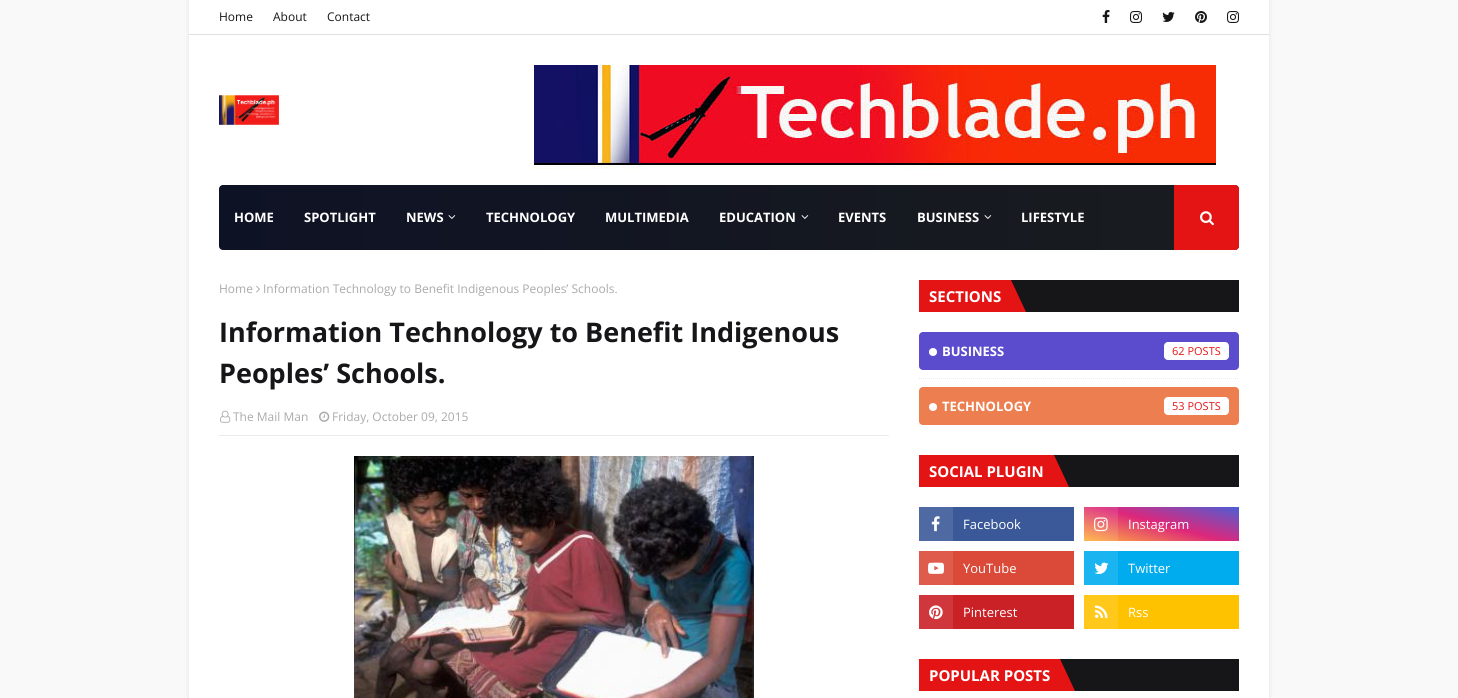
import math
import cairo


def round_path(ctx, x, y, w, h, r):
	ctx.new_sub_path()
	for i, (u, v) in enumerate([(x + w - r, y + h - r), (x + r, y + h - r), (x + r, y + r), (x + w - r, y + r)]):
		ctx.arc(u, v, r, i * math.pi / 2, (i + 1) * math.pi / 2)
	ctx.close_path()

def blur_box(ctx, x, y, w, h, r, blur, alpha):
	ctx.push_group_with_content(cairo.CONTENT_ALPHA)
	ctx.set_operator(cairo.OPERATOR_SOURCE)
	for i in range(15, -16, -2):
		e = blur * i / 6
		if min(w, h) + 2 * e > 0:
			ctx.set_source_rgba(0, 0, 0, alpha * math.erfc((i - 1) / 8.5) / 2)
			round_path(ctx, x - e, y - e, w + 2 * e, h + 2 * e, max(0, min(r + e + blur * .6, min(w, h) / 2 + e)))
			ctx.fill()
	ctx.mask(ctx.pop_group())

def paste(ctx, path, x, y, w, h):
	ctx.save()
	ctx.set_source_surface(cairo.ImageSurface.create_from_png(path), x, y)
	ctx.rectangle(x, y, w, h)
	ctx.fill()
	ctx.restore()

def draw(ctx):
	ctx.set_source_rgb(0.973, 0.973, 0.973)
	ctx.paint()
	ctx.set_source_rgb(0, 0, 0)
	blur_box(ctx, 189, 0, 1080, 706, 0, 2.5, 0.1)
	ctx.set_source_rgb(1, 1, 1)
	ctx.rectangle(189, 0, 1080, 698)
	ctx.fill()
	ctx.set_source_rgb(0.878, 0.871, 0.871)
	ctx.rectangle(189, 34, 1080, 1)
	ctx.fill()
	ctx.select_font_face('Open Sans')
	ctx.set_font_size(12)
	ctx.set_source_rgb(0.086, 0.086, 0.098)
	for x, y, s in [
		(219, 21, 'Home'),
		(273, 21, 'About'),
		(327, 21, 'Contact'),
	]:
		ctx.move_to(x, y)
		ctx.show_text(s)
	paste(ctx, 'media/1.png', 1102, 10, 8, 13)
	paste(ctx, 'media/2.png', 1130, 11, 12, 12)
	paste(ctx, 'media/3.png', 1162, 12, 13, 10)
	paste(ctx, 'media/4.png', 1195, 11, 12, 12)
	paste(ctx, 'media/2.png', 1227, 11, 12, 12)
	paste(ctx, 'media/5.png', 219, 95, 60, 30)
	paste(ctx, 'media/6.png', 534, 65, 682, 104)
	gradient = cairo.LinearGradient(219, 218, 1239, 217)
	gradient.add_color_stop_rgba(0, 0.055, 0.071, 0.145, 1)
	gradient.add_color_stop_rgba(1, 0.098, 0.11, 0.118, 1)
	ctx.set_source(gradient)
	round_path(ctx, 219, 185, 1020, 65, 4)
	ctx.fill()
	ctx.select_font_face('Open Sans', cairo.FONT_SLANT_NORMAL, cairo.FONT_WEIGHT_BOLD)
	ctx.set_font_size(13)
	ctx.set_source_rgb(1, 1, 1)
	for x, y, s in [
		(234, 222, 'HOME'),
		(304, 222, 'SPOTLIGHT'),
		(406, 222, 'NEWS'),
	]:
		ctx.move_to(x, y)
		ctx.show_text(s)
	paste(ctx, 'media/7.png', 448, 215, 8, 4)
	for x, y, s in [
		(486, 222, 'TECHNOLOGY'),
		(605, 222, 'MULTIMEDIA'),
		(719, 222, 'EDUCATION'),
	]:
		ctx.move_to(x, y)
		ctx.show_text(s)
	paste(ctx, 'media/8.png', 801, 215, 8, 4)
	ctx.move_to(838, 222)
	ctx.show_text('EVENTS')
	ctx.move_to(917, 222)
	ctx.show_text('BUSINESS')
	paste(ctx, 'media/9.png', 984, 215, 8, 4)
	ctx.move_to(1021, 222)
	ctx.show_text('LIFESTYLE')
	ctx.set_source_rgb(0.898, 0.082, 0.082)
	ctx.new_path()
	ctx.move_to(1174, 185)
	ctx.line_to(1235, 185)
	ctx.curve_to(1237, 185, 1239, 187, 1239, 189)
	ctx.line_to(1239, 246)
	ctx.curve_to(1239, 248, 1237, 250, 1235, 250)
	ctx.line_to(1174, 250)
	ctx.close_path()
	ctx.fill()
	paste(ctx, 'media/10.png', 1200, 211, 14, 15)
	ctx.select_font_face('Open Sans')
	ctx.set_font_size(12)
	ctx.set_source_rgb(0.667, 0.667, 0.667)
	ctx.move_to(219, 293)
	ctx.show_text('Home')
	paste(ctx, 'media/11.png', 256, 285, 4, 8)
	ctx.move_to(263, 293)
	ctx.show_text('Information Technology to Benefit Indigenous Peoples’ Schools.')
	ctx.select_font_face('Open Sans', cairo.FONT_SLANT_NORMAL, cairo.FONT_WEIGHT_BOLD)
	ctx.set_font_size(27)
	ctx.set_source_rgb(0.086, 0.086, 0.098)
	ctx.move_to(219, 342)
	ctx.show_text('Information Technology to Benefit Indigenous')
	ctx.move_to(219, 383)
	ctx.show_text('Peoples’ Schools.')
	ctx.set_source_rgb(0.918, 0.918, 0.918)
	ctx.rectangle(219, 435, 670, 1)
	ctx.fill()
	paste(ctx, 'media/12.png', 220, 410, 11, 13)
	ctx.select_font_face('Open Sans')
	ctx.set_font_size(12)
	ctx.set_source_rgb(0.667, 0.667, 0.667)
	ctx.move_to(233, 421)
	ctx.show_text('The Mail Man')
	paste(ctx, 'media/13.png', 319, 411, 11, 11)
	ctx.move_to(332, 421)
	ctx.show_text('Friday, October 09, 2015')
	paste(ctx, 'media/14.png', 354, 456, 400, 242)
	ctx.set_source_rgb(0.086, 0.086, 0.098)
	ctx.rectangle(1011, 280, 228, 32)
	ctx.fill()
	ctx.set_source_rgb(0.898, 0.082, 0.082)
	ctx.rectangle(919, 280, 92, 32)
	ctx.fill()
	ctx.select_font_face('Open Sans', cairo.FONT_SLANT_NORMAL, cairo.FONT_WEIGHT_BOLD)
	ctx.set_font_size(15)
	ctx.set_source_rgb(1, 1, 1)
	ctx.move_to(929, 302)
	ctx.show_text('SECTIONS')
	ctx.set_source_rgb(0.898, 0.082, 0.082)
	ctx.new_path()
	ctx.move_to(1011, 312)
	ctx.line_to(1011, 280)
	ctx.line_to(1026, 312)
	ctx.close_path()
	ctx.fill()
	ctx.set_source_rgb(0.357, 0.298, 0.808)
	round_path(ctx, 919, 332, 320, 38, 4)
	ctx.fill()
	ctx.set_source_rgb(1, 1, 1)
	ctx.arc(933, 352, 4, 0, 2 * math.pi)
	ctx.fill()
	ctx.set_font_size(13)
	ctx.move_to(942, 356)
	ctx.show_text('BUSINESS')
	round_path(ctx, 1164, 342, 65, 18, 4)
	ctx.fill()
	ctx.select_font_face('Open Sans')
	ctx.set_font_size(11)
	ctx.set_source_rgb(0.898, 0.082, 0.082)
	ctx.move_to(1172, 355)
	ctx.show_text('62 POSTS')
	ctx.new_path()
	ctx.move_to(919, 378.5)
	ctx.line_to(1239, 378.5)
	ctx.set_source_rgb(0.918, 0.918, 0.918)
	ctx.set_line_width(1)
	ctx.set_dash([1, 1])
	ctx.stroke()
	ctx.set_source_rgb(0.929, 0.494, 0.31)
	round_path(ctx, 919, 387, 320, 38, 4)
	ctx.fill()
	ctx.set_source_rgb(1, 1, 1)
	ctx.arc(933, 407, 4, 0, 2 * math.pi)
	ctx.fill()
	ctx.select_font_face('Open Sans', cairo.FONT_SLANT_NORMAL, cairo.FONT_WEIGHT_BOLD)
	ctx.set_font_size(13)
	ctx.move_to(942, 411)
	ctx.show_text('TECHNOLOGY')
	round_path(ctx, 1164, 397, 65, 18, 4)
	ctx.fill()
	ctx.select_font_face('Open Sans')
	ctx.set_font_size(11)
	ctx.set_source_rgb(0.898, 0.082, 0.082)
	ctx.move_to(1172, 410)
	ctx.show_text('53 POSTS')
	ctx.set_source_rgb(0.086, 0.086, 0.098)
	ctx.rectangle(1054, 455, 185, 32)
	ctx.fill()
	ctx.set_source_rgb(0.898, 0.082, 0.082)
	ctx.rectangle(919, 455, 135, 32)
	ctx.fill()
	ctx.select_font_face('Open Sans', cairo.FONT_SLANT_NORMAL, cairo.FONT_WEIGHT_BOLD)
	ctx.set_font_size(15)
	ctx.set_source_rgb(1, 1, 1)
	ctx.move_to(929, 477)
	ctx.show_text('SOCIAL PLUGIN')
	ctx.set_source_rgb(0.898, 0.082, 0.082)
	ctx.new_path()
	ctx.move_to(1054, 487)
	ctx.line_to(1054, 455)
	ctx.line_to(1069, 487)
	ctx.close_path()
	ctx.fill()
	ctx.set_source_rgb(0.231, 0.349, 0.6)
	ctx.rectangle(953, 507, 121, 34)
	ctx.fill()
	ctx.set_source_rgb(0.31, 0.416, 0.639)
	ctx.rectangle(919, 507, 34, 34)
	ctx.fill()
	paste(ctx, 'media/15.png', 931, 516, 9, 16)
	ctx.select_font_face('Open Sans')
	ctx.set_font_size(13)
	ctx.set_source_rgb(1, 1, 1)
	ctx.move_to(963, 529)
	ctx.show_text('Facebook')
	gradient = cairo.LinearGradient(1152, 559, 1171, 489)
	gradient.add_color_stop_rgba(0, 1, 0.694, 0.239, 1)
	gradient.add_color_stop_rgba(0.5, 0.867, 0.153, 0.482, 1)
	gradient.add_color_stop_rgba(1, 0.302, 0.369, 0.831, 1)
	ctx.set_source(gradient)
	ctx.rectangle(1118, 507, 121, 34)
	ctx.fill()
	gradient = cairo.LinearGradient(1152, 559, 1171, 489)
	gradient.add_color_stop_rgba(0, 1, 0.725, 0.314, 1)
	gradient.add_color_stop_rgba(0.5, 0.878, 0.239, 0.533, 1)
	gradient.add_color_stop_rgba(1, 0.373, 0.431, 0.847, 1)
	ctx.set_source(gradient)
	ctx.rectangle(1084, 507, 34, 34)
	ctx.fill()
	paste(ctx, 'media/16.png', 1094, 517, 14, 15)
	ctx.set_source_rgb(1, 1, 1)
	ctx.move_to(1128, 529)
	ctx.show_text('Instagram')
	ctx.set_source_rgb(0.859, 0.29, 0.224)
	ctx.rectangle(953, 551, 121, 34)
	ctx.fill()
	ctx.set_source_rgb(0.875, 0.361, 0.302)
	ctx.rectangle(919, 551, 34, 34)
	ctx.fill()
	paste(ctx, 'media/17.png', 928, 562, 16, 12)
	ctx.set_source_rgb(1, 1, 1)
	ctx.move_to(963, 573)
	ctx.show_text('YouTube')
	ctx.set_source_rgb(0, 0.675, 0.933)
	ctx.rectangle(1118, 551, 121, 34)
	ctx.fill()
	ctx.set_source_rgb(0.102, 0.706, 0.941)
	ctx.rectangle(1084, 551, 34, 34)
	ctx.fill()
	paste(ctx, 'media/18.png', 1094, 562, 15, 12)
	ctx.set_source_rgb(1, 1, 1)
	ctx.move_to(1128, 573)
	ctx.show_text('Twitter')
	ctx.set_source_rgb(0.792, 0.129, 0.153)
	ctx.rectangle(953, 595, 121, 34)
	ctx.fill()
	ctx.set_source_rgb(0.812, 0.216, 0.239)
	ctx.rectangle(919, 595, 34, 34)
	ctx.fill()
	paste(ctx, 'media/19.png', 929, 605, 14, 15)
	ctx.set_source_rgb(1, 1, 1)
	ctx.move_to(963, 617)
	ctx.show_text('Pinterest')
	ctx.set_source_rgb(1, 0.761, 0)
	ctx.rectangle(1118, 595, 121, 34)
	ctx.fill()
	ctx.set_source_rgb(1, 0.784, 0.102)
	ctx.rectangle(1084, 595, 34, 34)
	ctx.fill()
	paste(ctx, 'media/20.png', 1095, 605, 13, 13)
	ctx.set_source_rgb(1, 1, 1)
	ctx.move_to(1128, 617)
	ctx.show_text('Rss')
	ctx.set_source_rgb(0.086, 0.086, 0.098)
	ctx.rectangle(1060, 659, 179, 32)
	ctx.fill()
	ctx.set_source_rgb(0.898, 0.082, 0.082)
	ctx.rectangle(919, 659, 141, 32)
	ctx.fill()
	ctx.select_font_face('Open Sans', cairo.FONT_SLANT_NORMAL, cairo.FONT_WEIGHT_BOLD)
	ctx.set_font_size(15)
	ctx.set_source_rgb(1, 1, 1)
	ctx.move_to(929, 681)
	ctx.show_text('POPULAR POSTS')
	ctx.set_source_rgb(0.898, 0.082, 0.082)
	ctx.new_path()
	ctx.move_to(1060, 691)
	ctx.line_to(1060, 659)
	ctx.line_to(1075, 691)
	ctx.close_path()
	ctx.fill()


surface = cairo.ImageSurface(cairo.FORMAT_RGB24, 1458, 698)
ctx = cairo.Context(surface)
options = cairo.FontOptions()
options.set_hint_metrics(cairo.HINT_METRICS_OFF)
options.set_hint_style(cairo.HINT_STYLE_NONE)
ctx.set_font_options(options)
ctx.set_miter_limit(4)
draw(ctx)
surface.write_to_png('image.png')
